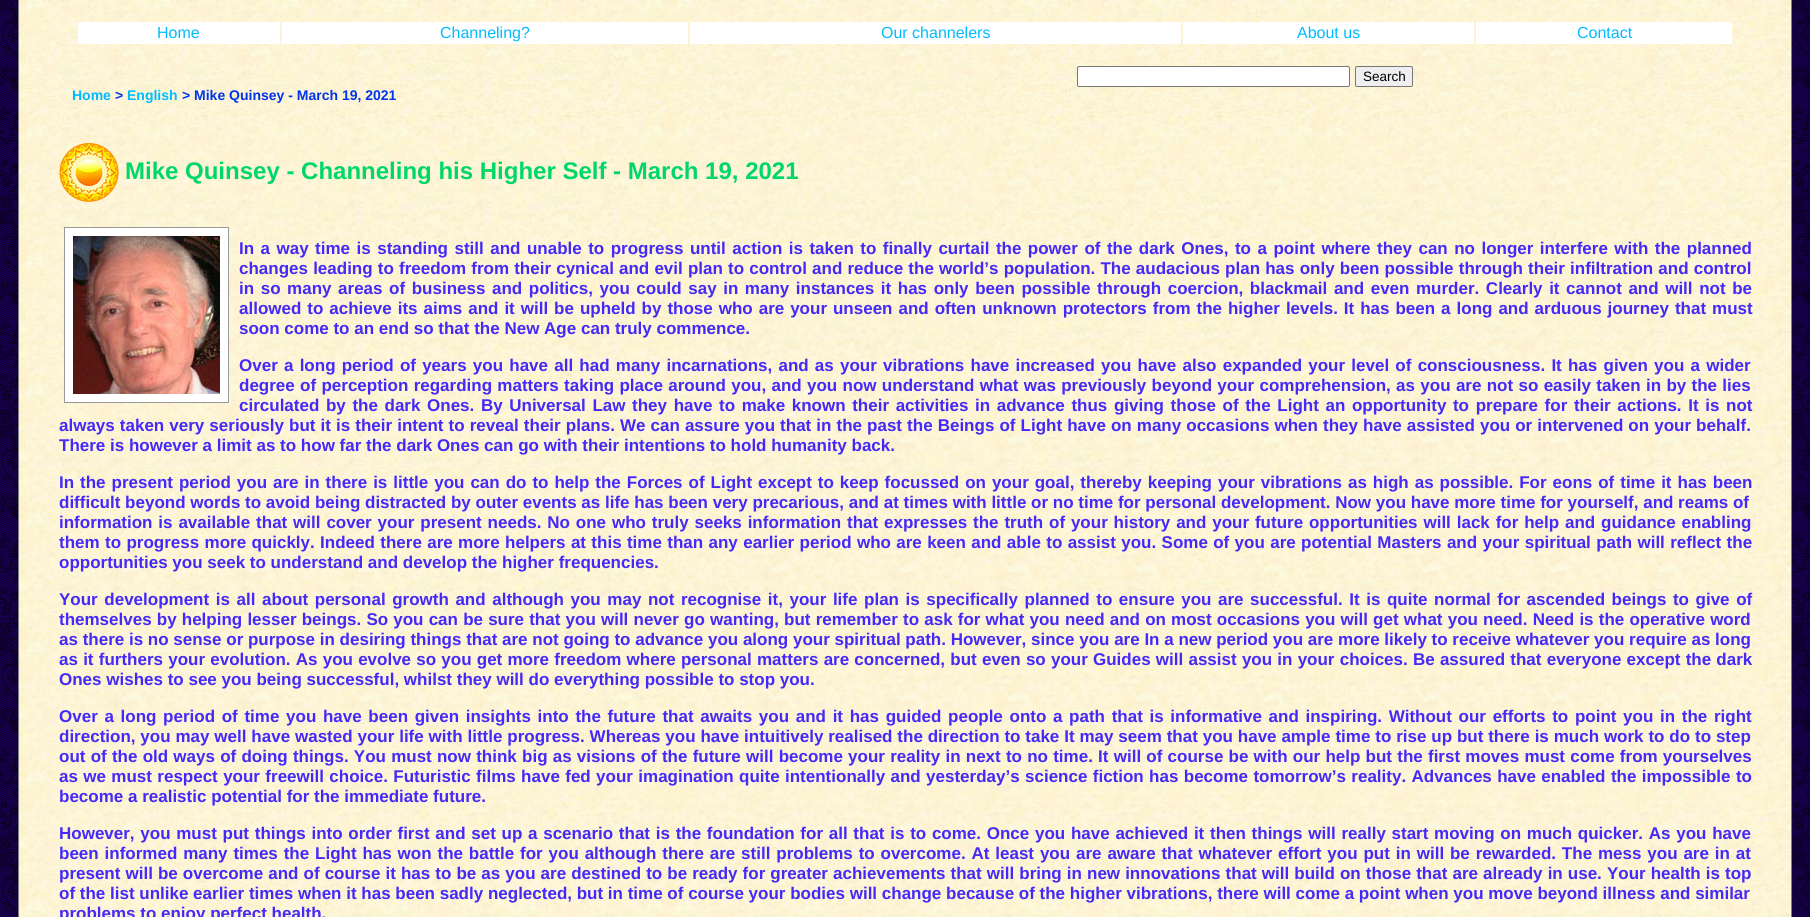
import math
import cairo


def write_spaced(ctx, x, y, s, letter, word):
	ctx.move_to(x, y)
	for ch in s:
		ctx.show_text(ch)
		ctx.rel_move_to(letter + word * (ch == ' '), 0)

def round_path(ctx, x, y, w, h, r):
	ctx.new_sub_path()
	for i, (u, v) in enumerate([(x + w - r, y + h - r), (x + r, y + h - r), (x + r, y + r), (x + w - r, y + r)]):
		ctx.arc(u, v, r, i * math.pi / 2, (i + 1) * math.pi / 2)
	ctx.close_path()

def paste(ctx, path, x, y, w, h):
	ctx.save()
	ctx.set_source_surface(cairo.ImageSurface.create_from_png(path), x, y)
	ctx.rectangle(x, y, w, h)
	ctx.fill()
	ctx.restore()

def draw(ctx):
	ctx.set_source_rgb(1, 1, 1)
	ctx.paint()
	paste(ctx, 'media/1.png', 0, 0, 18, 917)
	paste(ctx, 'media/2.png', 19, 0, 1772, 917)
	ctx.set_source_rgb(0.502, 0.502, 0.502)
	ctx.rectangle(1791, 0, 1, 917)
	ctx.rectangle(18, 0, 1, 917)
	ctx.fill()
	ctx.set_source_rgb(1, 1, 1)
	ctx.rectangle(78, 22, 202, 22)
	ctx.fill()
	ctx.select_font_face('Liberation Sans')
	ctx.set_font_size(16)
	ctx.set_source_rgb(0, 0.733, 1)
	ctx.move_to(157, 38)
	ctx.show_text('Home')
	ctx.set_source_rgb(1, 1, 1)
	ctx.rectangle(282, 22, 406, 22)
	ctx.fill()
	ctx.set_source_rgb(0, 0.733, 1)
	ctx.move_to(440, 38)
	ctx.show_text('Channeling?')
	ctx.set_source_rgb(1, 1, 1)
	ctx.rectangle(690, 22, 491, 22)
	ctx.fill()
	ctx.set_source_rgb(0, 0.733, 1)
	ctx.move_to(881, 38)
	ctx.show_text('Our channelers')
	ctx.set_source_rgb(1, 1, 1)
	ctx.rectangle(1183, 22, 291, 22)
	ctx.fill()
	ctx.set_source_rgb(0, 0.733, 1)
	ctx.move_to(1297, 38)
	ctx.show_text('About us')
	ctx.set_source_rgb(1, 1, 1)
	ctx.rectangle(1476, 22, 256, 22)
	ctx.fill()
	ctx.set_source_rgb(0, 0.733, 1)
	ctx.move_to(1577, 38)
	ctx.show_text('Contact')
	ctx.set_source_rgb(1, 1, 1)
	round_path(ctx, 1077.5, 66.5, 272, 20, 1.5)
	ctx.fill_preserve()
	ctx.set_source_rgb(0.463, 0.463, 0.463)
	ctx.set_line_width(1)
	ctx.stroke()
	ctx.set_source_rgb(0.937, 0.937, 0.937)
	round_path(ctx, 1355.5, 66.5, 57, 20, 1.5)
	ctx.fill_preserve()
	ctx.set_source_rgb(0.463, 0.463, 0.463)
	ctx.stroke()
	ctx.set_font_size(13.5)
	ctx.set_source_rgb(0, 0, 0)
	ctx.move_to(1363, 81)
	ctx.show_text('Search')
	ctx.select_font_face('Liberation Sans', cairo.FONT_SLANT_NORMAL, cairo.FONT_WEIGHT_BOLD)
	ctx.set_font_size(14)
	ctx.set_source_rgb(0, 0.733, 1)
	ctx.move_to(72, 100)
	ctx.show_text('Home')
	ctx.set_source_rgb(0, 0.2, 0.933)
	ctx.move_to(115, 100)
	ctx.show_text('>')
	ctx.set_source_rgb(0, 0.733, 1)
	ctx.move_to(127, 100)
	ctx.show_text('English')
	ctx.set_source_rgb(0, 0.2, 0.933)
	ctx.move_to(182, 100)
	ctx.show_text('> Mike Quinsey - March 19, 2021')
	paste(ctx, 'media/3.png', 59, 143, 60, 59)
	ctx.set_font_size(24)
	ctx.set_source_rgb(0, 0.843, 0.412)
	ctx.move_to(125, 179)
	ctx.show_text('Mike Quinsey - Channeling his Higher Self - March 19, 2021')
	ctx.set_source_rgb(1, 1, 1)
	ctx.rectangle(64.5, 227.5, 164, 175)
	ctx.fill_preserve()
	ctx.set_source_rgb(0.6, 0.6, 0.6)
	ctx.stroke()
	paste(ctx, 'media/4.png', 73, 236, 147, 158)
	ctx.set_font_size(17)
	ctx.set_source_rgb(0.267, 0.161, 0.976)
	write_spaced(ctx, 239, 254, 'In a way time is standing still and unable to progress until action is taken to finally curtail the power of the dark Ones, to a point where they can no longer interfere with the planned', 0, 1.75)
	write_spaced(ctx, 239, 274, 'changes leading to freedom from their cynical and evil plan to control and reduce the world’s population. The audacious plan has only been possible through their infiltration and control', 0, 0.45)
	write_spaced(ctx, 239, 294, 'in so many areas of business and politics, you could say in many instances it has only been possible through coercion, blackmail and even murder. Clearly it cannot and will not be', 0, 1.85)
	write_spaced(ctx, 239, 314, 'allowed to achieve its aims and it will be upheld by those who are your unseen and often unknown protectors from the higher levels. It has been a long and arduous journey that must', 0, 1.25)
	ctx.move_to(239, 334)
	ctx.show_text('soon come to an end so that the New Age can truly commence.')
	write_spaced(ctx, 239, 371, 'Over a long period of years you have all had many incarnations, and as your vibrations have increased you have also expanded your level of consciousness. It has given you a wider', 0, 1.5)
	write_spaced(ctx, 239, 391, 'degree of perception regarding matters taking place around you, and you now understand what was previously beyond your comprehension, as you are not so easily taken in by the lies', 0, 0.6)
	write_spaced(ctx, 239, 411, 'circulated by the dark Ones. By Universal Law they have to make known their activities in advance thus giving those of the Light an opportunity to prepare for their actions. It is not', 0, 1.9)
	write_spaced(ctx, 59, 431, 'always taken very seriously but it is their intent to reveal their plans. We can assure you that in the past the Beings of Light have on many occasions when they have assisted you or intervened on your behalf.', 0, 0.35)
	ctx.move_to(59, 451)
	ctx.show_text('There is however a limit as to how far the dark Ones can go with their intentions to hold humanity back.')
	write_spaced(ctx, 59, 488, 'In the present period you are in there is little you can do to help the Forces of Light except to keep focussed on your goal, thereby keeping your vibrations as high as possible. For eons of time it has been', 0, 1.25)
	ctx.move_to(59, 508)
	ctx.show_text('difficult beyond words to avoid being distracted by outer events as life has been very precarious, and at times with little or no time for personal development. Now you have more time for yourself, and reams of')
	write_spaced(ctx, 59, 528, 'information is available that will cover your present needs. No one who truly seeks information that expresses the truth of your history and your future opportunities will lack for help and guidance enabling', 0, 1.15)
	write_spaced(ctx, 59, 548, 'them to progress more quickly. Indeed there are more helpers at this time than any earlier period who are keen and able to assist you. Some of you are potential Masters and your spiritual path will reflect the', 0, 0.65)
	ctx.move_to(59, 568)
	ctx.show_text('opportunities you seek to understand and develop the higher frequencies.')
	write_spaced(ctx, 59, 605, 'Your development is all about personal growth and although you may not recognise it, your life plan is specifically planned to ensure you are successful. It is quite normal for ascended beings to give of', 0, 1.85)
	write_spaced(ctx, 59, 625, 'themselves by helping lesser beings. So you can be sure that you will never go wanting, but remember to ask for what you need and on most occasions you will get what you need. Need is the operative word', 0, 0.45)
	ctx.move_to(59, 645)
	ctx.show_text('as there is no sense or purpose in desiring things that are not going to advance you along your spiritual path. However, since you are In a new period you are more likely to receive whatever you require as long')
	write_spaced(ctx, 59, 665, 'as it furthers your evolution. As you evolve so you get more freedom where personal matters are concerned, but even so your Guides will assist you in your choices. Be assured that everyone except the dark', 0, 0.5)
	ctx.move_to(59, 685)
	ctx.show_text('Ones wishes to see you being successful, whilst they will do everything possible to stop you.')
	write_spaced(ctx, 59, 722, 'Over a long period of time you have been given insights into the future that awaits you and it has guided people onto a path that is informative and inspiring. Without our efforts to point you in the right', 0, 1.95)
	write_spaced(ctx, 59, 742, 'direction, you may well have wasted your life with little progress. Whereas you have intuitively realised the direction to take It may seem that you have ample time to rise up but there is much work to do to step', 0, 0.15)
	write_spaced(ctx, 59, 762, 'out of the old ways of doing things. You must now think big as visions of the future will become your reality in next to no time. It will of course be with our help but the first moves must come from yourselves', 0, 0.5)
	write_spaced(ctx, 59, 782, 'as we must respect your freewill choice. Futuristic films have fed your imagination quite intentionally and yesterday’s science fiction has become tomorrow’s reality. Advances have enabled the impossible to', 0, 0.65)
	ctx.move_to(59, 802)
	ctx.show_text('become a realistic potential for the immediate future.')
	write_spaced(ctx, 59, 839, 'However, you must put things into order first and set up a scenario that is the foundation for all that is to come. Once you have achieved it then things will really start moving on much quicker. As you have', 0, 1)
	write_spaced(ctx, 59, 859, 'been informed many times the Light has won the battle for you although there are still problems to overcome. At least you are aware that whatever effort you put in will be rewarded. The mess you are in at', 0, 1.15)
	write_spaced(ctx, 59, 879, 'present will be overcome and of course it has to be as you are destined to be ready for greater achievements that will bring in new innovations that will build on those that are already in use. Your health is top', 0, 0.35)
	ctx.move_to(59, 899)
	ctx.show_text('of the list unlike earlier times when it has been sadly neglected, but in time of course your bodies will change because of the higher vibrations, there will come a point when you move beyond illness and similar')
	ctx.move_to(59, 919)
	ctx.show_text('problems to enjoy perfect health.')
	paste(ctx, 'media/5.png', 1792, 0, 18, 917)


surface = cairo.ImageSurface(cairo.FORMAT_RGB24, 1810, 917)
ctx = cairo.Context(surface)
options = cairo.FontOptions()
options.set_hint_metrics(cairo.HINT_METRICS_OFF)
options.set_hint_style(cairo.HINT_STYLE_NONE)
ctx.set_font_options(options)
ctx.set_miter_limit(4)
draw(ctx)
surface.write_to_png('image.png')
